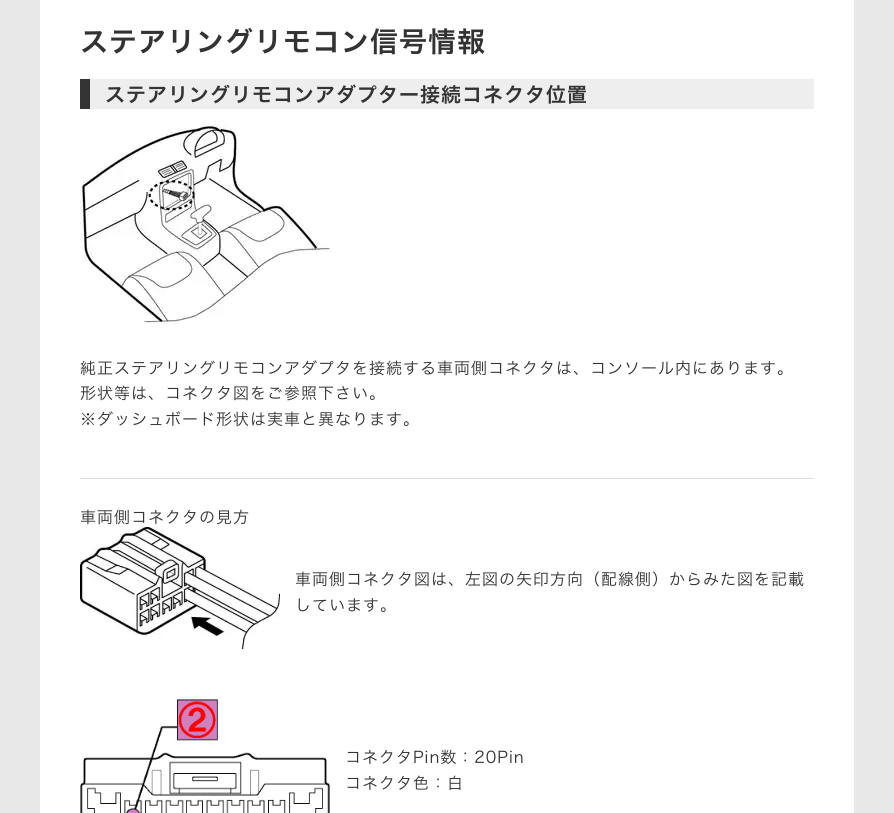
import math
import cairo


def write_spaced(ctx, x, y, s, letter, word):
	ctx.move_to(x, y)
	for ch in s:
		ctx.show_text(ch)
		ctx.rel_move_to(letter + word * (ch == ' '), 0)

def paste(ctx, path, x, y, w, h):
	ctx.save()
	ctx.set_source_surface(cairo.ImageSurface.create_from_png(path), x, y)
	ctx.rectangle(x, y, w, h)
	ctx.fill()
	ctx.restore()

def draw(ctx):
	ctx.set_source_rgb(0.91, 0.91, 0.91)
	ctx.paint()
	ctx.set_source_rgb(1, 1, 1)
	ctx.rectangle(40, 0, 814, 813)
	ctx.fill()
	ctx.select_font_face('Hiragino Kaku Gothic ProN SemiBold')
	ctx.set_font_size(28)
	ctx.set_source_rgb(0.2, 0.2, 0.2)
	write_spaced(ctx, 80, 52, 'ステアリングリモコン信号情報', 1, 0)
	ctx.set_source_rgb(0.933, 0.933, 0.933)
	ctx.rectangle(90, 79, 724, 30)
	ctx.fill()
	ctx.set_source_rgb(0.2, 0.2, 0.2)
	ctx.rectangle(80, 79, 10, 30)
	ctx.fill()
	ctx.set_font_size(20)
	write_spaced(ctx, 105, 102, 'ステアリングリモコンアダプター接続コネクタ位置', 1, 0)
	paste(ctx, 'media/1.png', 80, 124, 250, 200)
	ctx.select_font_face('Hiragino Kaku Gothic ProN Light')
	ctx.set_font_size(16)
	for x, y, s in [
		(80, 374, '純正ステアリングリモコンアダプタを接続する車両側コネクタは、コンソール内にあります。'),
		(80, 399, '形状等は、コネクタ図をご参照下さい。'),
		(80, 425, '※ダッシュボード形状は実車と異なります。'),
	]:
		write_spaced(ctx, x, y, s, 1, 0)
	ctx.set_source_rgb(0.867, 0.867, 0.867)
	ctx.rectangle(80, 478, 734, 1)
	ctx.fill()
	ctx.set_source_rgb(0.2, 0.2, 0.2)
	write_spaced(ctx, 80, 523, '車両側コネクタの見方', 1, 0)
	paste(ctx, 'media/2.png', 80, 527, 200, 122)
	write_spaced(ctx, 295, 585, '車両側コネクタ図は、左図の矢印方向（配線側）からみた図を記載', 1, 0)
	write_spaced(ctx, 295, 611, 'しています。', 1, 0)
	paste(ctx, 'media/3.png', 80, 699, 250, 114)
	write_spaced(ctx, 345, 763, 'コネクタPin数：20Pin', 1, 0)
	write_spaced(ctx, 345, 789, 'コネクタ色：白', 1, 0)


surface = cairo.ImageSurface(cairo.FORMAT_RGB24, 894, 813)
ctx = cairo.Context(surface)
options = cairo.FontOptions()
options.set_hint_metrics(cairo.HINT_METRICS_OFF)
options.set_hint_style(cairo.HINT_STYLE_NONE)
ctx.set_font_options(options)
ctx.set_miter_limit(4)
draw(ctx)
surface.write_to_png('image.png')
